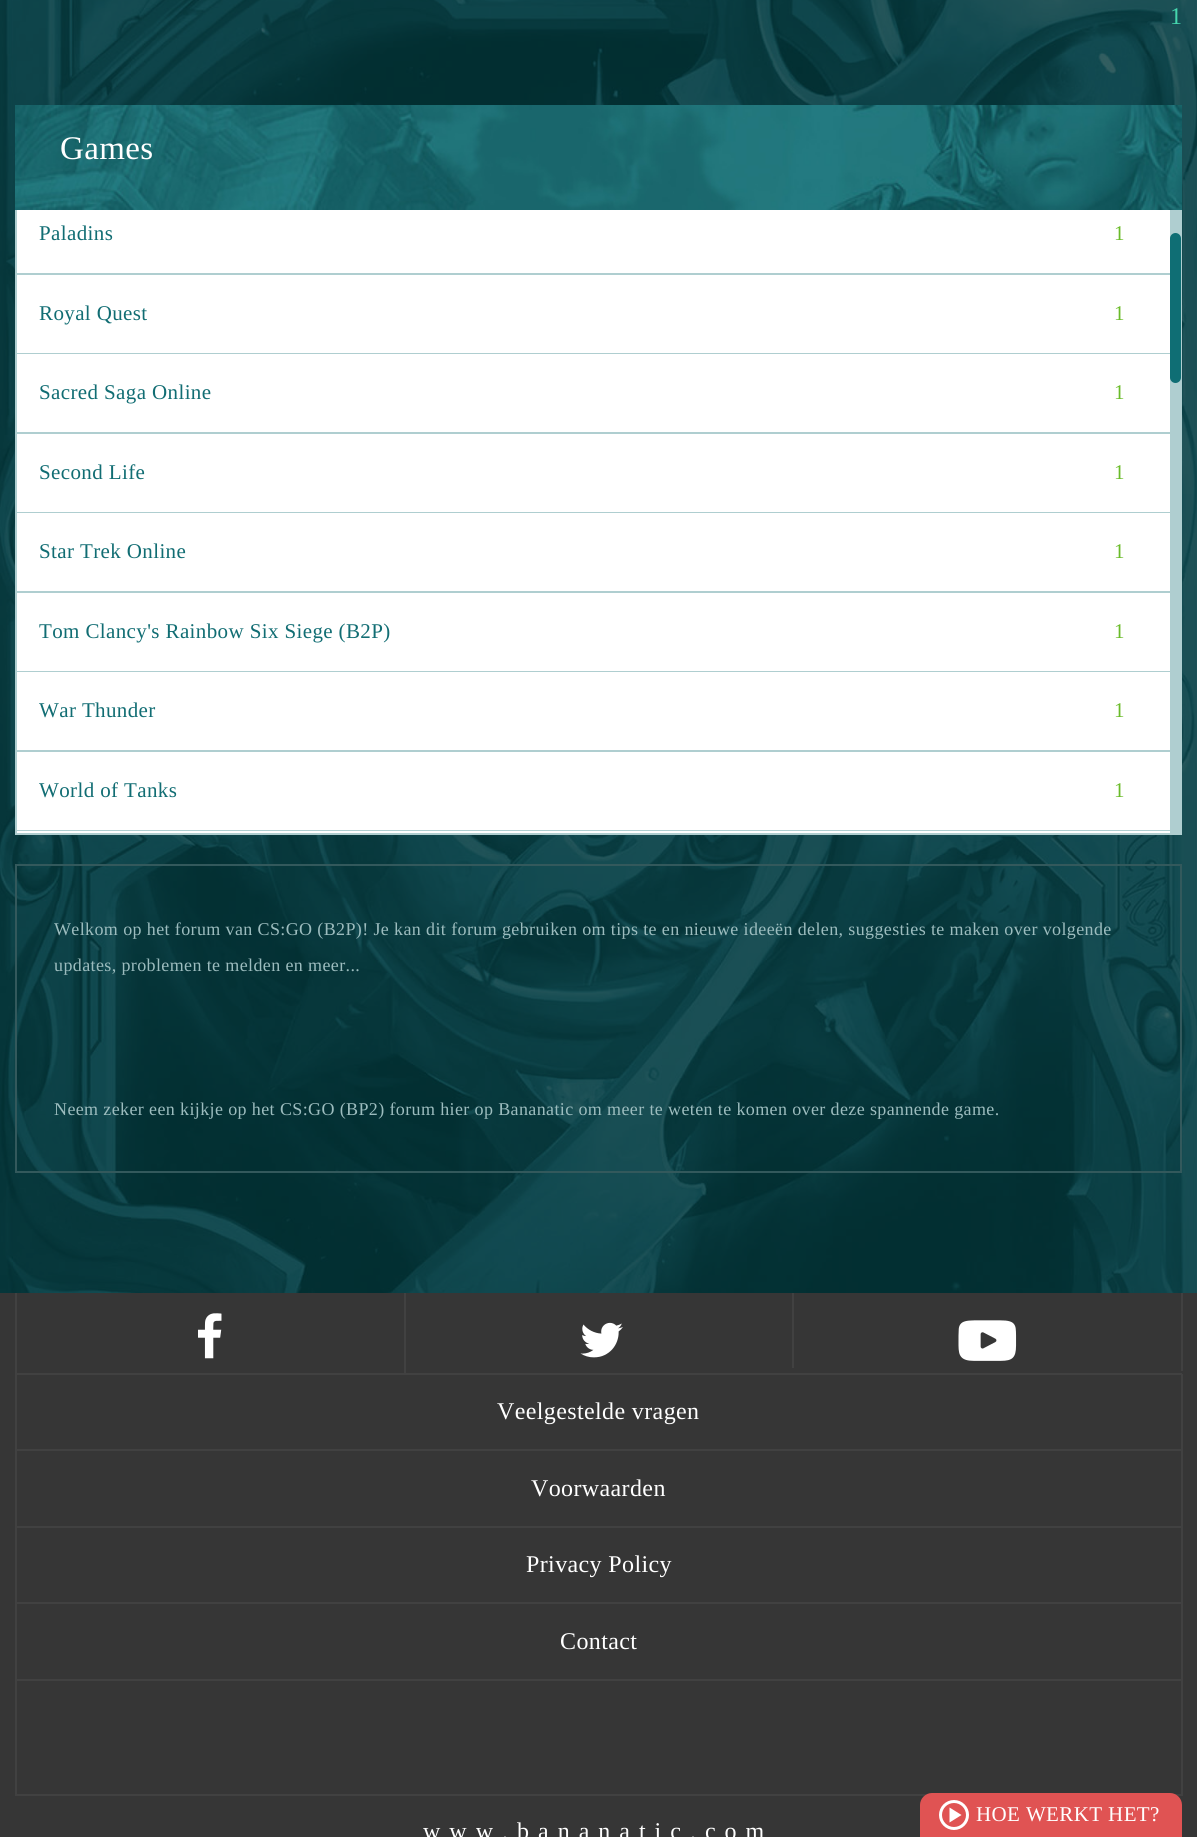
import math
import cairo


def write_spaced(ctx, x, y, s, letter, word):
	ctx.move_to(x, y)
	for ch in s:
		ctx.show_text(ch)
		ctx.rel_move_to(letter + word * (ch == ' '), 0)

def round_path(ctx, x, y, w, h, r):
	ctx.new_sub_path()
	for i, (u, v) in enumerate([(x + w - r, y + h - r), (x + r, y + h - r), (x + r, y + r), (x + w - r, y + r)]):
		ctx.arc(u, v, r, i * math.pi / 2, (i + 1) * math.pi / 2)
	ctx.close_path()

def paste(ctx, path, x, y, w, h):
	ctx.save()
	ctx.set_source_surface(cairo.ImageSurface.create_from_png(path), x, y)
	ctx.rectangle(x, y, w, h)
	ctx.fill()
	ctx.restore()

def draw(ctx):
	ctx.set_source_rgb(0.212, 0.212, 0.212)
	ctx.paint()
	paste(ctx, 'media/1.png', 0, 0, 1197, 1293)
	ctx.select_font_face('Liberation Serif')
	ctx.set_font_size(24)
	ctx.set_source_rgb(0.271, 0.843, 0.682)
	write_spaced(ctx, 1170, 24, '1', 0.38, 0)
	paste(ctx, 'media/2.png', 15, 105, 1167, 105)
	ctx.set_font_size(33)
	ctx.set_source_rgb(1, 1, 1)
	write_spaced(ctx, 60, 159, 'Games', 0.38, 0)
	ctx.set_source_rgb(0.686, 0.808, 0.816)
	ctx.rectangle(15, 210, 1167, 625)
	ctx.fill()
	ctx.set_source_rgb(1, 1, 1)
	ctx.rectangle(17, 210, 1153, 63)
	ctx.fill()
	ctx.set_font_size(21)
	ctx.set_source_rgb(0.067, 0.427, 0.451)
	write_spaced(ctx, 39, 240, 'Paladins', 0.38, 0)
	ctx.set_source_rgb(0.416, 0.733, 0.161)
	write_spaced(ctx, 1114, 240, '1', 0.38, 0)
	ctx.set_source_rgb(1, 1, 1)
	ctx.rectangle(17, 275, 1153, 78)
	ctx.fill()
	ctx.set_source_rgb(0.067, 0.427, 0.451)
	write_spaced(ctx, 39, 320, 'Royal Quest', 0.38, 0)
	ctx.set_source_rgb(0.416, 0.733, 0.161)
	write_spaced(ctx, 1114, 320, '1', 0.38, 0)
	ctx.set_source_rgb(1, 1, 1)
	ctx.rectangle(17, 354, 1153, 78)
	ctx.fill()
	ctx.set_source_rgb(0.067, 0.427, 0.451)
	write_spaced(ctx, 39, 399, 'Sacred Saga Online', 0.38, 0)
	ctx.set_source_rgb(0.416, 0.733, 0.161)
	write_spaced(ctx, 1114, 399, '1', 0.38, 0)
	ctx.set_source_rgb(1, 1, 1)
	ctx.rectangle(17, 434, 1153, 78)
	ctx.fill()
	ctx.set_source_rgb(0.067, 0.427, 0.451)
	write_spaced(ctx, 39, 479, 'Second Life', 0.38, 0)
	ctx.set_source_rgb(0.416, 0.733, 0.161)
	write_spaced(ctx, 1114, 479, '1', 0.38, 0)
	ctx.set_source_rgb(1, 1, 1)
	ctx.rectangle(17, 513, 1153, 78)
	ctx.fill()
	ctx.set_source_rgb(0.067, 0.427, 0.451)
	write_spaced(ctx, 39, 558, 'Star Trek Online', 0.38, 0)
	ctx.set_source_rgb(0.416, 0.733, 0.161)
	write_spaced(ctx, 1114, 558, '1', 0.38, 0)
	ctx.set_source_rgb(1, 1, 1)
	ctx.rectangle(17, 593, 1153, 78)
	ctx.fill()
	ctx.set_source_rgb(0.067, 0.427, 0.451)
	write_spaced(ctx, 39, 638, 'Tom Clancy\'s Rainbow Six Siege (B2P)', 0.38, 0)
	ctx.set_source_rgb(0.416, 0.733, 0.161)
	write_spaced(ctx, 1114, 638, '1', 0.38, 0)
	ctx.set_source_rgb(1, 1, 1)
	ctx.rectangle(17, 672, 1153, 78)
	ctx.fill()
	ctx.set_source_rgb(0.067, 0.427, 0.451)
	write_spaced(ctx, 39, 717, 'War Thunder', 0.38, 0)
	ctx.set_source_rgb(0.416, 0.733, 0.161)
	write_spaced(ctx, 1114, 717, '1', 0.38, 0)
	ctx.set_source_rgb(1, 1, 1)
	ctx.rectangle(17, 752, 1153, 78)
	ctx.fill()
	ctx.set_source_rgb(0.067, 0.427, 0.451)
	write_spaced(ctx, 39, 797, 'World of Tanks', 0.38, 0)
	ctx.set_source_rgb(0.416, 0.733, 0.161)
	write_spaced(ctx, 1114, 797, '1', 0.38, 0)
	ctx.set_source_rgb(1, 1, 1)
	ctx.rectangle(17, 831, 1153, 2)
	ctx.fill()
	ctx.set_source_rgb(0.059, 0.431, 0.455)
	round_path(ctx, 1170, 233, 11, 150, 5.5)
	ctx.fill()
	ctx.rectangle(16, 865, 1165, 307)
	ctx.set_source_rgb(0.2, 0.349, 0.361)
	ctx.stroke()
	ctx.set_font_size(18)
	ctx.set_source_rgb(0.612, 0.737, 0.745)
	for x, y, s in [
		(54, 935, 'Welkom op het forum van CS:GO (B2P)! Je kan dit forum gebruiken om tips te en nieuwe ideeën delen, suggesties te maken over volgende'),
		(54, 971, 'updates, problemen te melden en meer...'),
		(54, 1115, 'Neem zeker een kijkje op het CS:GO (BP2) forum hier op Bananatic om meer te weten te komen over deze spannende game.'),
	]:
		write_spaced(ctx, x, y, s, 0.38, 0)
	ctx.set_source_rgb(0.255, 0.255, 0.255)
	ctx.rectangle(15, 1373, 1167, 2)
	ctx.rectangle(15, 1293, 2, 81)
	ctx.rectangle(404, 1293, 2, 80)
	ctx.fill()
	paste(ctx, 'media/3.png', 198, 1313, 24, 46)
	ctx.rectangle(792, 1293, 2, 75)
	ctx.fill()
	paste(ctx, 'media/4.png', 580, 1322, 43, 36)
	ctx.rectangle(1181, 1293, 2, 78)
	ctx.fill()
	paste(ctx, 'media/5.png', 958, 1320, 59, 41)
	ctx.rectangle(1181, 1374, 2, 306)
	ctx.rectangle(15, 1449, 1167, 2)
	ctx.rectangle(15, 1374, 2, 77)
	ctx.fill()
	ctx.set_font_size(24)
	ctx.set_source_rgb(1, 1, 1)
	write_spaced(ctx, 497, 1419, 'Veelgestelde vragen', 0.38, 0)
	ctx.set_source_rgb(0.255, 0.255, 0.255)
	ctx.rectangle(15, 1602, 1167, 2)
	ctx.fill()
	ctx.rectangle(15, 1451, 2, 153)
	ctx.fill()
	ctx.set_source_rgb(1, 1, 1)
	write_spaced(ctx, 531, 1496, 'Voorwaarden', 0.38, 0)
	ctx.set_source_rgb(0.255, 0.255, 0.255)
	ctx.rectangle(17, 1526, 1164, 2)
	ctx.fill()
	ctx.set_source_rgb(1, 1, 1)
	write_spaced(ctx, 526, 1572, 'Privacy Policy', 0.38, 0)
	ctx.set_source_rgb(0.255, 0.255, 0.255)
	ctx.rectangle(15, 1679, 1167, 2)
	ctx.fill()
	ctx.rectangle(15, 1604, 2, 76)
	ctx.fill()
	ctx.set_source_rgb(1, 1, 1)
	write_spaced(ctx, 560, 1649, 'Contact', 0.38, 0)
	ctx.set_source_rgb(0.255, 0.255, 0.255)
	ctx.rectangle(1181, 1680, 2, 116)
	ctx.rectangle(15, 1794, 1167, 2)
	ctx.rectangle(15, 1680, 2, 116)
	ctx.fill()
	ctx.set_source_rgb(1, 1, 1)
	write_spaced(ctx, 423, 1839, 'www.bananatic.com', 9, 0)
	ctx.set_source_rgb(0.878, 0.325, 0.325)
	ctx.new_path()
	ctx.move_to(932, 1793)
	ctx.line_to(1170, 1793)
	ctx.curve_to(1176.5, 1793, 1182, 1798.5, 1182, 1805)
	ctx.line_to(1182, 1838)
	ctx.line_to(920, 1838)
	ctx.line_to(920, 1805)
	ctx.curve_to(920, 1798.5, 925.5, 1793, 932, 1793)
	ctx.close_path()
	ctx.fill()
	ctx.set_source_rgb(1, 1, 1)
	ctx.new_path()
	ctx.move_to(949.5, 1822.5)
	ctx.line_to(949.5, 1807.5)
	ctx.line_to(961.5, 1815)
	ctx.close_path()
	ctx.fill()
	ctx.arc(954, 1815, 13.5, 0, 2 * math.pi)
	ctx.set_line_width(3)
	ctx.stroke()
	ctx.set_font_size(21)
	write_spaced(ctx, 976, 1821, 'HOE WERKT HET?', 0.38, 0)


surface = cairo.ImageSurface(cairo.FORMAT_RGB24, 1197, 1837)
ctx = cairo.Context(surface)
options = cairo.FontOptions()
options.set_hint_metrics(cairo.HINT_METRICS_OFF)
options.set_hint_style(cairo.HINT_STYLE_NONE)
ctx.set_font_options(options)
ctx.set_miter_limit(4)
draw(ctx)
surface.write_to_png('image.png')
